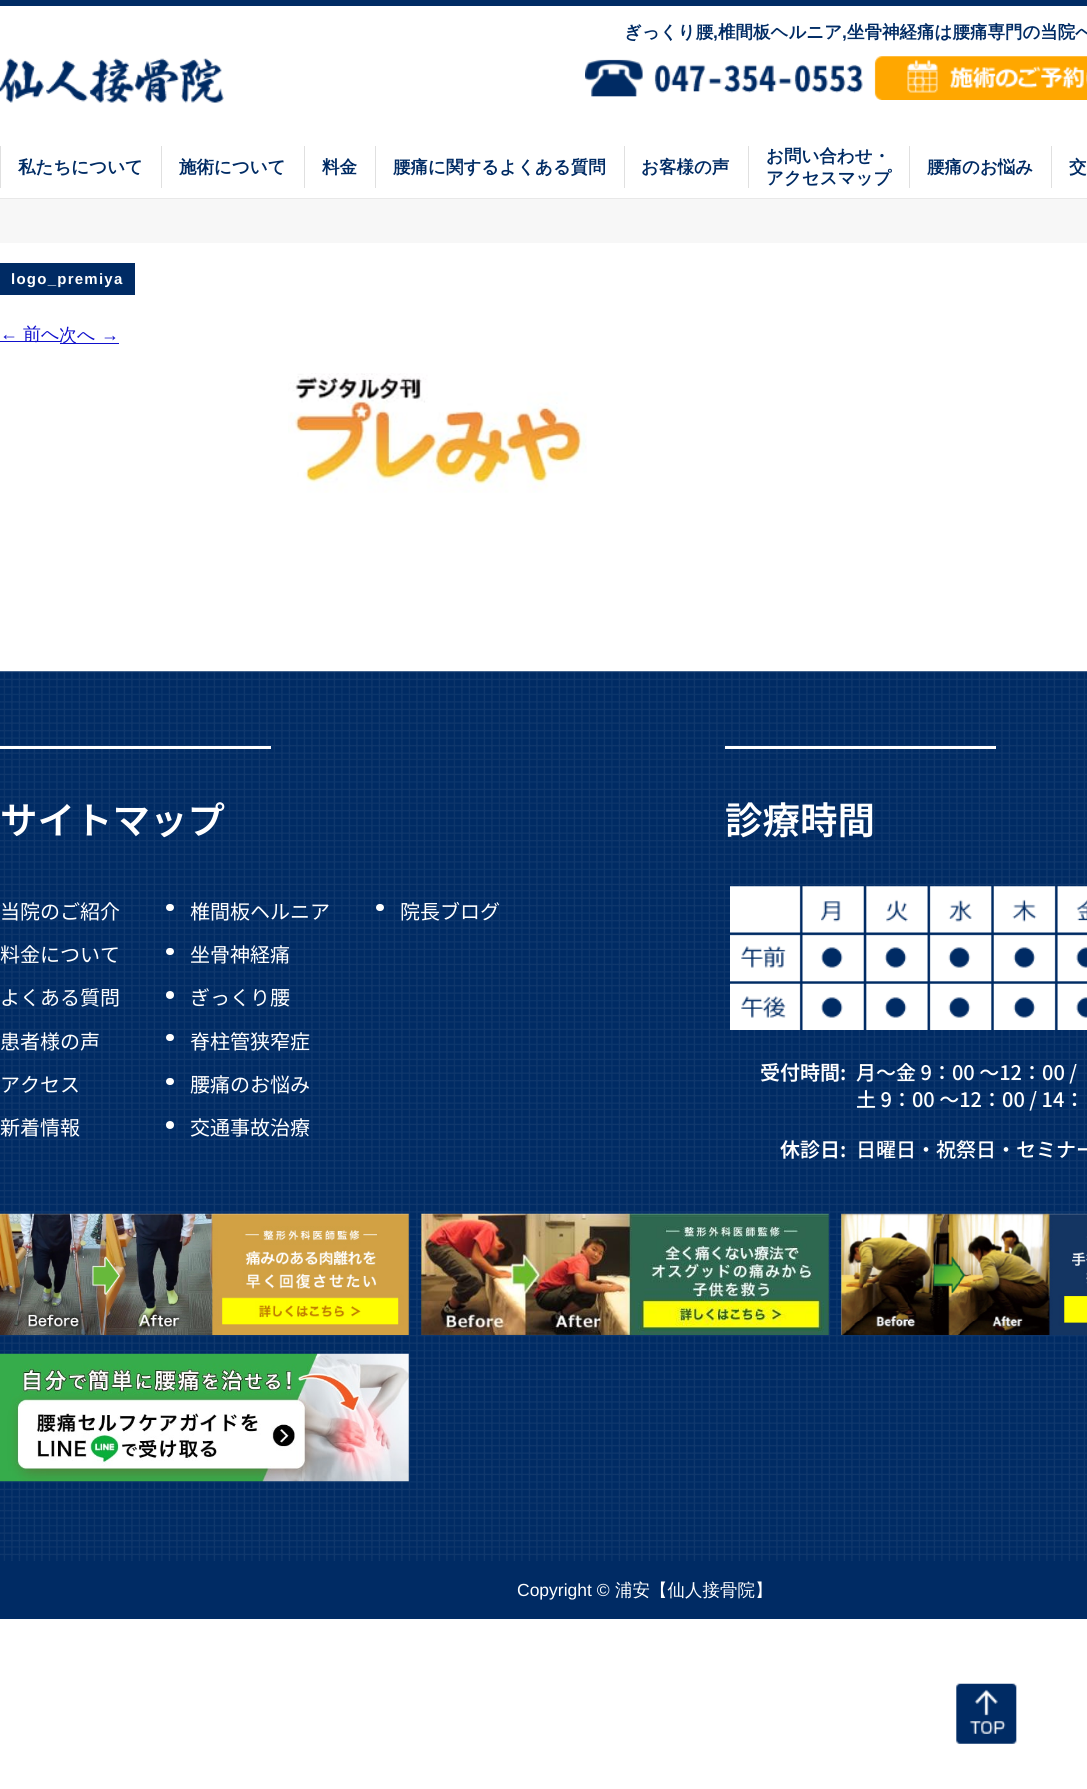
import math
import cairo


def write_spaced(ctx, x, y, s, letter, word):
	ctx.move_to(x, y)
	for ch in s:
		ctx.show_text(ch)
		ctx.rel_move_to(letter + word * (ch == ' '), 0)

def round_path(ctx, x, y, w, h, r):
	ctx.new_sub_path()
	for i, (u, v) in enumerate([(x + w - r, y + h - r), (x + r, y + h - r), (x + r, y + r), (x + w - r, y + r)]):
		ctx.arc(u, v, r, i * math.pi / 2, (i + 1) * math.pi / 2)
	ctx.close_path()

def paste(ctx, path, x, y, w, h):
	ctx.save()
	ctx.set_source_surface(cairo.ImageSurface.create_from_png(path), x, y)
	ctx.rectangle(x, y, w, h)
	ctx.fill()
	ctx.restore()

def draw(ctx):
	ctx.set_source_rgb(1, 1, 1)
	ctx.paint()
	ctx.set_source_rgb(0, 0.169, 0.392)
	ctx.rectangle(0, 0, 1087, 6)
	ctx.fill()
	ctx.set_source_rgb(0.91, 0.91, 0.91)
	ctx.rectangle(0, 198, 1087, 1)
	ctx.fill()
	ctx.select_font_face('WenQuanYi Zen Hei', cairo.FONT_SLANT_NORMAL, cairo.FONT_WEIGHT_BOLD)
	ctx.set_font_size(17.5)
	ctx.set_source_rgb(0, 0.169, 0.392)
	ctx.move_to(624, 38)
	ctx.show_text('ぎっくり腰')
	ctx.select_font_face('Liberation Sans', cairo.FONT_SLANT_NORMAL, cairo.FONT_WEIGHT_BOLD)
	ctx.move_to(713, 38)
	ctx.show_text(',')
	ctx.select_font_face('WenQuanYi Zen Hei', cairo.FONT_SLANT_NORMAL, cairo.FONT_WEIGHT_BOLD)
	ctx.move_to(718, 38)
	ctx.show_text('椎間板ヘルニア')
	ctx.select_font_face('Liberation Sans', cairo.FONT_SLANT_NORMAL, cairo.FONT_WEIGHT_BOLD)
	ctx.move_to(842, 38)
	ctx.show_text(',')
	ctx.select_font_face('WenQuanYi Zen Hei', cairo.FONT_SLANT_NORMAL, cairo.FONT_WEIGHT_BOLD)
	ctx.move_to(847, 38)
	ctx.show_text('坐骨神経痛は腰痛専門の当院へ')
	paste(ctx, 'media/1.png', 0, 58, 224, 45)
	paste(ctx, 'media/2.png', 585, 56, 502, 44)
	ctx.set_source_rgb(0.878, 0.878, 0.878)
	ctx.rectangle(0, 146, 1, 42)
	ctx.fill()
	ctx.set_source_rgb(0, 0.169, 0.392)
	ctx.move_to(18, 173)
	ctx.show_text('私たちについて')
	ctx.set_source_rgb(0.878, 0.878, 0.878)
	ctx.rectangle(161, 146, 1, 42)
	ctx.fill()
	ctx.set_source_rgb(0, 0.169, 0.392)
	ctx.move_to(179, 173)
	ctx.show_text('施術について')
	ctx.set_source_rgb(0.878, 0.878, 0.878)
	ctx.rectangle(304, 146, 1, 42)
	ctx.fill()
	ctx.set_source_rgb(0, 0.169, 0.392)
	ctx.move_to(322, 173)
	ctx.show_text('料金')
	ctx.set_source_rgb(0.878, 0.878, 0.878)
	ctx.rectangle(375, 146, 1, 42)
	ctx.fill()
	ctx.set_source_rgb(0, 0.169, 0.392)
	ctx.move_to(393, 173)
	ctx.show_text('腰痛に関するよくある質問')
	ctx.set_source_rgb(0.878, 0.878, 0.878)
	ctx.rectangle(624, 146, 1, 42)
	ctx.fill()
	ctx.set_source_rgb(0, 0.169, 0.392)
	ctx.move_to(641, 173)
	ctx.show_text('お客様の声')
	ctx.set_source_rgb(0.878, 0.878, 0.878)
	ctx.rectangle(748, 146, 1, 42)
	ctx.fill()
	ctx.set_source_rgb(0, 0.169, 0.392)
	ctx.move_to(766, 162)
	ctx.show_text('お問い合わせ・')
	ctx.move_to(766, 184)
	ctx.show_text('アクセスマップ')
	ctx.set_source_rgb(0.878, 0.878, 0.878)
	ctx.rectangle(909, 146, 1, 42)
	ctx.fill()
	ctx.set_source_rgb(0, 0.169, 0.392)
	ctx.move_to(927, 173)
	ctx.show_text('腰痛のお悩み')
	ctx.set_source_rgb(0.878, 0.878, 0.878)
	ctx.rectangle(1051, 146, 1, 42)
	ctx.fill()
	ctx.set_source_rgb(0, 0.169, 0.392)
	ctx.move_to(1069, 173)
	ctx.show_text('交')
	ctx.set_source_rgb(0.965, 0.965, 0.965)
	ctx.rectangle(0, 199, 1087, 44)
	ctx.fill()
	ctx.set_source_rgb(0, 0.169, 0.392)
	ctx.rectangle(0, 263, 135, 32)
	ctx.fill()
	ctx.select_font_face('Liberation Sans', cairo.FONT_SLANT_NORMAL, cairo.FONT_WEIGHT_BOLD)
	ctx.set_font_size(15)
	ctx.set_source_rgb(1, 1, 1)
	write_spaced(ctx, 11, 284, 'logo_premiya', 1.25, 0)
	ctx.select_font_face('Liberation Sans')
	ctx.set_font_size(18)
	ctx.set_source_rgb(0.067, 0.067, 0.8)
	ctx.move_to(0, 340)
	ctx.show_text('←')
	ctx.rectangle(0, 341, 60, 1)
	ctx.fill()
	ctx.select_font_face('WenQuanYi Zen Hei Medium')
	ctx.move_to(23, 340)
	ctx.show_text('前へ')
	ctx.rectangle(60, 343, 59, 1)
	ctx.fill()
	ctx.move_to(59, 341)
	ctx.show_text('次へ')
	ctx.select_font_face('Liberation Sans')
	ctx.move_to(101, 341)
	ctx.show_text('→')
	paste(ctx, 'media/3.png', 288, 373, 299, 120)
	paste(ctx, 'media/4.png', 0, 671, 1087, 890)
	ctx.set_source_rgb(1, 1, 1)
	ctx.rectangle(0, 746, 271, 3)
	ctx.fill()
	ctx.select_font_face('Noto Sans JP SemiBold')
	ctx.set_font_size(37.5)
	ctx.move_to(0, 834)
	ctx.show_text('サイトマップ')
	ctx.select_font_face('Noto Sans JP')
	ctx.set_font_size(20)
	for x, y, s in [
		(0, 919, '当院のご紹介'),
		(0, 962, '料金について'),
		(0, 1005, 'よくある質問'),
		(0, 1049, '患者様の声'),
		(0, 1092, 'アクセス'),
		(0, 1135, '新着情報'),
	]:
		ctx.move_to(x, y)
		ctx.show_text(s)
	round_path(ctx, 166, 904, 8, 7, 3.5)
	ctx.fill()
	ctx.move_to(190, 919)
	ctx.show_text('椎間板ヘルニア')
	round_path(ctx, 166, 948, 8, 7, 3.5)
	ctx.fill()
	ctx.move_to(190, 962)
	ctx.show_text('坐骨神経痛')
	ctx.new_path()
	ctx.arc(170, 995, 4, 0, 2 * math.pi)
	ctx.fill()
	ctx.move_to(190, 1005)
	ctx.show_text('ぎっくり腰')
	round_path(ctx, 166, 1034, 8, 7, 3.5)
	ctx.fill()
	ctx.move_to(190, 1049)
	ctx.show_text('脊柱管狭窄症')
	round_path(ctx, 166, 1078, 8, 7, 3.5)
	ctx.fill()
	ctx.move_to(190, 1092)
	ctx.show_text('腰痛のお悩み')
	ctx.new_path()
	ctx.arc(170, 1125, 4, 0, 2 * math.pi)
	ctx.fill()
	ctx.move_to(190, 1135)
	ctx.show_text('交通事故治療')
	round_path(ctx, 376, 904, 8, 7, 3.5)
	ctx.fill()
	ctx.move_to(400, 919)
	ctx.show_text('院長ブログ')
	ctx.rectangle(725, 746, 271, 3)
	ctx.fill()
	ctx.select_font_face('Noto Sans JP SemiBold')
	ctx.set_font_size(37.5)
	ctx.move_to(725, 834)
	ctx.show_text('診療時間')
	paste(ctx, 'media/5.png', 730, 886, 357, 144)
	ctx.set_font_size(20)
	ctx.move_to(760, 1080)
	ctx.show_text('受付時間:')
	ctx.select_font_face('Noto Sans JP Medium')
	ctx.move_to(856, 1080)
	ctx.show_text('月～金 9：00 ～12：00 /')
	ctx.move_to(856, 1107)
	ctx.show_text('土 9：00 ～12：00 / 14：')
	ctx.select_font_face('Noto Sans JP SemiBold')
	ctx.move_to(780, 1157)
	ctx.show_text('休診日:')
	ctx.select_font_face('Noto Sans JP Medium')
	ctx.move_to(856, 1157)
	ctx.show_text('日曜日・祝祭日・セミナー')
	paste(ctx, 'media/6.png', 0, 1213, 409, 122)
	paste(ctx, 'media/7.png', 421, 1213, 408, 122)
	paste(ctx, 'media/8.png', 841, 1213, 246, 122)
	paste(ctx, 'media/9.png', 0, 1353, 409, 129)
	ctx.set_source_rgb(0, 0.169, 0.392)
	ctx.rectangle(0, 1561, 1087, 58)
	ctx.fill()
	ctx.select_font_face('Liberation Sans')
	ctx.set_font_size(17.5)
	ctx.set_source_rgb(1, 1, 1)
	ctx.move_to(517, 1596)
	ctx.show_text('Copyright ©')
	ctx.select_font_face('WenQuanYi Zen Hei Medium')
	ctx.move_to(615, 1596)
	ctx.show_text('浦安【仙人接骨院】')
	paste(ctx, 'media/10.png', 956, 1683, 61, 61)


surface = cairo.ImageSurface(cairo.FORMAT_RGB24, 1087, 1789)
ctx = cairo.Context(surface)
options = cairo.FontOptions()
options.set_hint_metrics(cairo.HINT_METRICS_OFF)
options.set_hint_style(cairo.HINT_STYLE_NONE)
ctx.set_font_options(options)
ctx.set_miter_limit(4)
draw(ctx)
surface.write_to_png('image.png')
